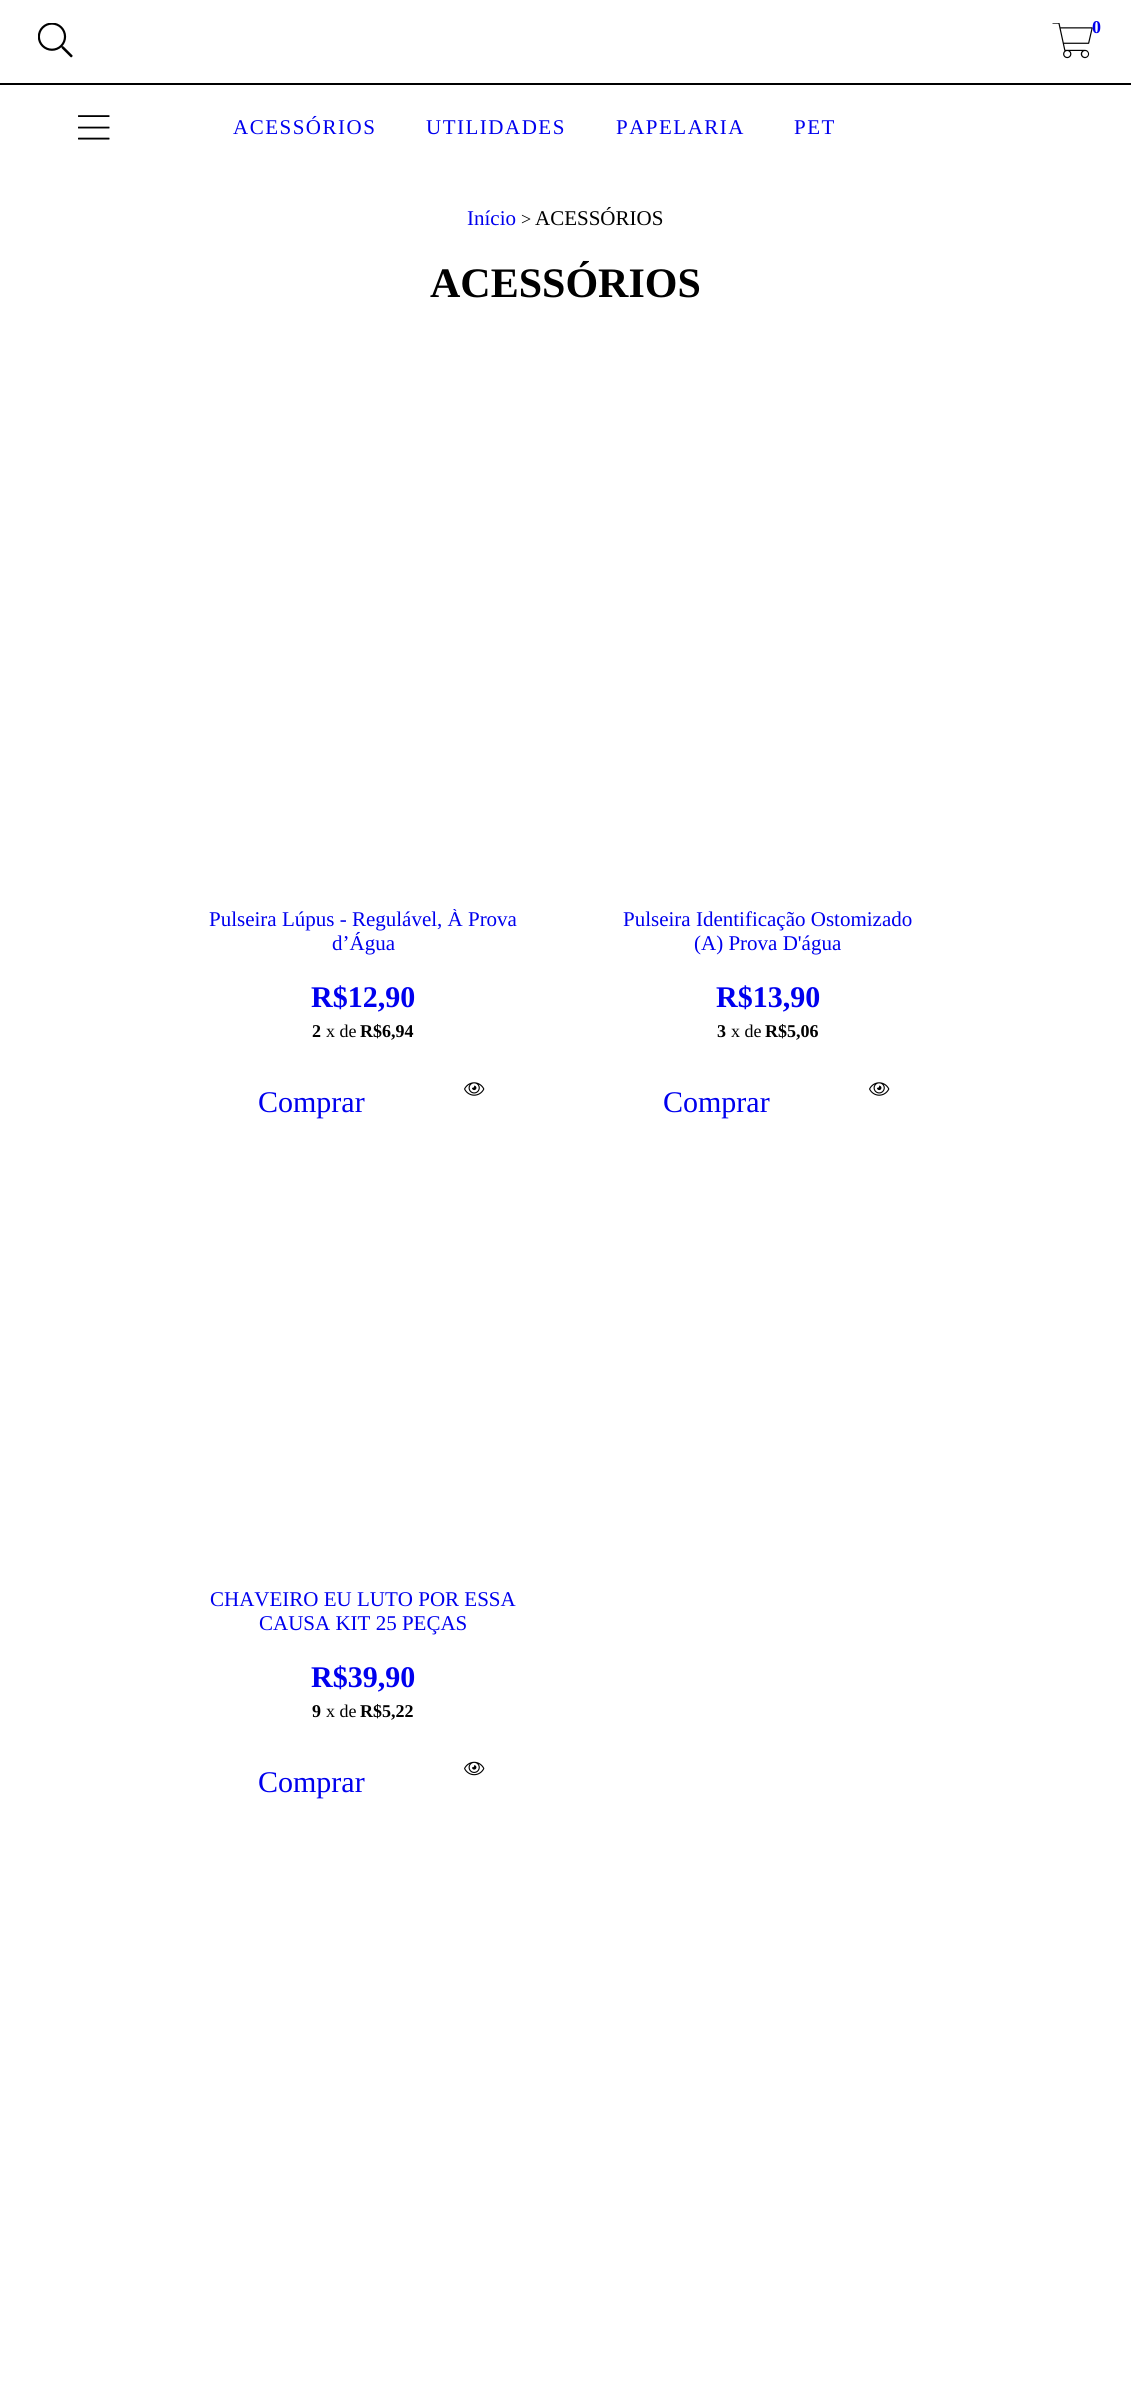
import math
import cairo


def write_spaced(ctx, x, y, s, letter, word):
	ctx.move_to(x, y)
	for ch in s:
		ctx.show_text(ch)
		ctx.rel_move_to(letter + word * (ch == ' '), 0)

def paste(ctx, path, x, y, w, h):
	ctx.save()
	ctx.set_source_surface(cairo.ImageSurface.create_from_png(path), x, y)
	ctx.rectangle(x, y, w, h)
	ctx.fill()
	ctx.restore()

def draw(ctx):
	ctx.set_source_rgb(1, 1, 1)
	ctx.paint()
	paste(ctx, 'media/1.png', 38, 23, 35, 35)
	paste(ctx, 'media/2.png', 1052, 23, 41, 36)
	ctx.select_font_face('Liberation Serif', cairo.FONT_SLANT_NORMAL, cairo.FONT_WEIGHT_BOLD)
	ctx.set_font_size(18)
	ctx.set_source_rgb(0, 0, 0.933)
	ctx.move_to(1092, 33)
	ctx.show_text('0')
	ctx.set_source_rgb(0, 0, 0)
	ctx.rectangle(0, 83, 1131, 2)
	ctx.fill()
	paste(ctx, 'media/3.png', 78, 115, 32, 25)
	ctx.select_font_face('Liberation Serif')
	ctx.set_font_size(21)
	ctx.set_source_rgb(0, 0, 0.933)
	for x, y, s in [
		(233, 134, 'ACESSÓRIOS'),
		(426, 134, 'UTILIDADES'),
		(616, 134, 'PAPELARIA'),
		(794, 134, 'PET'),
	]:
		write_spaced(ctx, x, y, s, 1.5, 0)
	ctx.move_to(467, 225)
	ctx.show_text('Início')
	ctx.set_font_size(18)
	ctx.set_source_rgb(0, 0, 0)
	ctx.move_to(521, 225)
	ctx.show_text('>')
	ctx.set_font_size(21)
	ctx.move_to(535, 225)
	ctx.show_text('ACESSÓRIOS')
	ctx.select_font_face('Liberation Serif', cairo.FONT_SLANT_NORMAL, cairo.FONT_WEIGHT_BOLD)
	ctx.set_font_size(42)
	ctx.move_to(430, 297)
	ctx.show_text('ACESSÓRIOS')
	ctx.save()
	ctx.rectangle(207, 909, 312, 48)
	ctx.clip()
	ctx.select_font_face('Liberation Serif')
	ctx.set_font_size(21)
	ctx.set_source_rgb(0, 0, 0.933)
	ctx.move_to(209, 926)
	ctx.show_text('Pulseira Lúpus - Regulável, À Prova')
	ctx.restore()
	ctx.select_font_face('Liberation Serif')
	ctx.set_font_size(21)
	ctx.set_source_rgb(0, 0, 0.933)
	ctx.move_to(332, 950)
	ctx.show_text('d’Água')
	ctx.select_font_face('Liberation Serif', cairo.FONT_SLANT_NORMAL, cairo.FONT_WEIGHT_BOLD)
	ctx.set_font_size(30)
	ctx.move_to(311, 1007)
	ctx.show_text('R$12,90')
	ctx.set_font_size(18)
	ctx.set_source_rgb(0, 0, 0)
	ctx.move_to(312, 1037)
	ctx.show_text('2')
	ctx.select_font_face('Liberation Serif')
	ctx.move_to(326, 1037)
	ctx.show_text('x de')
	ctx.select_font_face('Liberation Serif', cairo.FONT_SLANT_NORMAL, cairo.FONT_WEIGHT_BOLD)
	ctx.move_to(360, 1037)
	ctx.show_text('R$6,94')
	paste(ctx, 'media/4.png', 464, 1082, 21, 14)
	ctx.select_font_face('Liberation Serif')
	ctx.set_font_size(30)
	ctx.set_source_rgb(0, 0, 0.933)
	ctx.move_to(258, 1112)
	ctx.show_text('Comprar')
	ctx.set_font_size(21)
	ctx.move_to(623, 926)
	ctx.show_text('Pulseira Identificação Ostomizado')
	ctx.move_to(694, 950)
	ctx.show_text('(A) Prova D\'água')
	ctx.select_font_face('Liberation Serif', cairo.FONT_SLANT_NORMAL, cairo.FONT_WEIGHT_BOLD)
	ctx.set_font_size(30)
	ctx.move_to(716, 1007)
	ctx.show_text('R$13,90')
	ctx.set_font_size(18)
	ctx.set_source_rgb(0, 0, 0)
	ctx.move_to(717, 1037)
	ctx.show_text('3')
	ctx.select_font_face('Liberation Serif')
	ctx.move_to(731, 1037)
	ctx.show_text('x de')
	ctx.select_font_face('Liberation Serif', cairo.FONT_SLANT_NORMAL, cairo.FONT_WEIGHT_BOLD)
	ctx.move_to(765, 1037)
	ctx.show_text('R$5,06')
	paste(ctx, 'media/4.png', 869, 1082, 21, 14)
	ctx.select_font_face('Liberation Serif')
	ctx.set_font_size(30)
	ctx.set_source_rgb(0, 0, 0.933)
	ctx.move_to(663, 1112)
	ctx.show_text('Comprar')
	ctx.set_font_size(21)
	ctx.move_to(210, 1606)
	ctx.show_text('CHAVEIRO EU LUTO POR ESSA')
	ctx.move_to(259, 1630)
	ctx.show_text('CAUSA KIT 25 PEÇAS')
	ctx.select_font_face('Liberation Serif', cairo.FONT_SLANT_NORMAL, cairo.FONT_WEIGHT_BOLD)
	ctx.set_font_size(30)
	ctx.move_to(311, 1687)
	ctx.show_text('R$39,90')
	ctx.set_font_size(18)
	ctx.set_source_rgb(0, 0, 0)
	ctx.move_to(312, 1717)
	ctx.show_text('9')
	ctx.select_font_face('Liberation Serif')
	ctx.move_to(326, 1717)
	ctx.show_text('x de')
	ctx.select_font_face('Liberation Serif', cairo.FONT_SLANT_NORMAL, cairo.FONT_WEIGHT_BOLD)
	ctx.move_to(360, 1717)
	ctx.show_text('R$5,22')
	paste(ctx, 'media/5.png', 464, 1761, 21, 15)
	ctx.select_font_face('Liberation Serif')
	ctx.set_font_size(30)
	ctx.set_source_rgb(0, 0, 0.933)
	ctx.move_to(258, 1792)
	ctx.show_text('Comprar')


surface = cairo.ImageSurface(cairo.FORMAT_RGB24, 1131, 2387)
ctx = cairo.Context(surface)
options = cairo.FontOptions()
options.set_hint_metrics(cairo.HINT_METRICS_OFF)
options.set_hint_style(cairo.HINT_STYLE_NONE)
ctx.set_font_options(options)
ctx.set_miter_limit(4)
draw(ctx)
surface.write_to_png('image.png')
